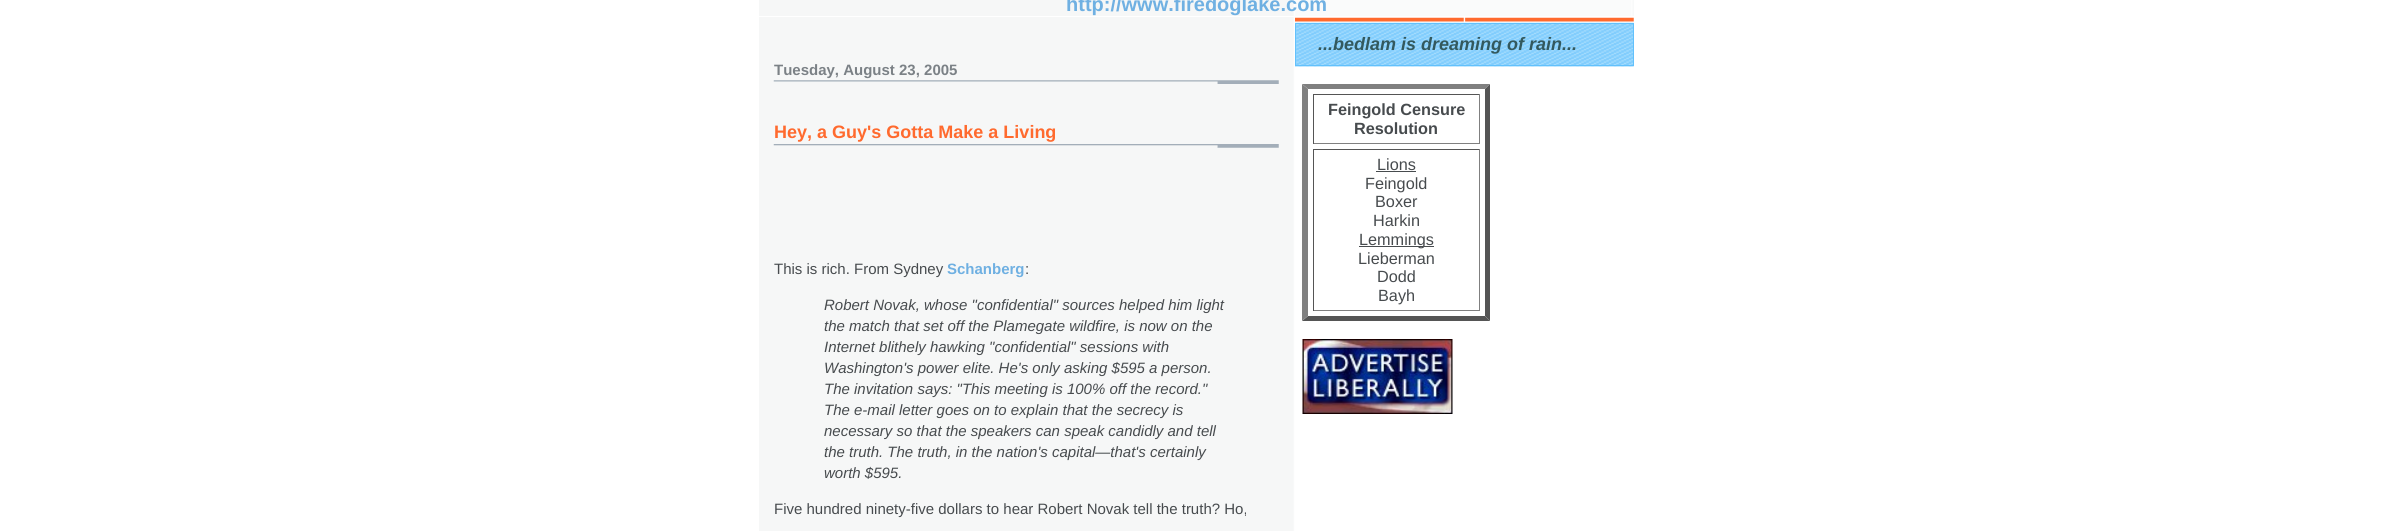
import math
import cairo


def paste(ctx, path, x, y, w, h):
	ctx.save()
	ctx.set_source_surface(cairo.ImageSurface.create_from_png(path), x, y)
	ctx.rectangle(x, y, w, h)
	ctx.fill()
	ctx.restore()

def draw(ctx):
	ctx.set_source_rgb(1, 1, 1)
	ctx.paint()
	paste(ctx, 'media/1.png', 759, 0, 875, 531)
	ctx.select_font_face('Liberation Sans', cairo.FONT_SLANT_NORMAL, cairo.FONT_WEIGHT_BOLD)
	ctx.set_font_size(20)
	ctx.set_source_rgb(0.435, 0.69, 0.886)
	ctx.move_to(1066, 11)
	ctx.show_text('http://www.firedoglake.com')
	ctx.set_source_rgb(1, 1, 1)
	ctx.rectangle(759, 16, 535, 1)
	ctx.fill()
	paste(ctx, 'media/2.png', 773, 80, 506, 4)
	ctx.set_font_size(15)
	ctx.set_source_rgb(0.482, 0.506, 0.525)
	ctx.move_to(774, 75)
	ctx.show_text('Tuesday, August 23, 2005')
	paste(ctx, 'media/3.png', 773, 144, 506, 4)
	ctx.set_font_size(18)
	ctx.set_source_rgb(1, 0.416, 0.18)
	ctx.move_to(774, 138)
	ctx.show_text('Hey, a Guy\'s Gotta Make a Living')
	ctx.select_font_face('Liberation Sans')
	ctx.set_font_size(15)
	ctx.set_source_rgb(0.278, 0.294, 0.306)
	ctx.move_to(774, 274)
	ctx.show_text('This is rich. From Sydney')
	ctx.select_font_face('Liberation Sans', cairo.FONT_SLANT_NORMAL, cairo.FONT_WEIGHT_BOLD)
	ctx.set_source_rgb(0.435, 0.69, 0.886)
	ctx.move_to(947, 274)
	ctx.show_text('Schanberg')
	ctx.select_font_face('Liberation Sans')
	ctx.set_source_rgb(0.278, 0.294, 0.306)
	ctx.move_to(1025, 274)
	ctx.show_text(':')
	ctx.select_font_face('Liberation Sans', cairo.FONT_SLANT_ITALIC)
	for x, y, s in [
		(824, 310, 'Robert Novak, whose "confidential" sources helped him light'),
		(824, 331, 'the match that set off the Plamegate wildfire, is now on the'),
		(824, 352, 'Internet blithely hawking "confidential" sessions with'),
		(824, 373, 'Washington\'s power elite. He\'s only asking $595 a person.'),
		(824, 394, 'The invitation says: "This meeting is 100% off the record."'),
		(824, 415, 'The e-mail letter goes on to explain that the secrecy is'),
		(824, 436, 'necessary so that the speakers can speak candidly and tell'),
		(824, 457, 'the truth. The truth, in the nation\'s capital—that\'s certainly'),
		(824, 478, 'worth $595.'),
	]:
		ctx.move_to(x, y)
		ctx.show_text(s)
	ctx.select_font_face('Liberation Sans')
	ctx.move_to(774, 514)
	ctx.show_text('Five hundred ninety-five dollars to hear Robert Novak tell the truth? Ho,')
	ctx.set_source_rgb(1, 1, 1)
	ctx.rectangle(1295, 16, 339, 515)
	ctx.fill()
	paste(ctx, 'media/4.png', 1295, 17, 339, 5)
	paste(ctx, 'media/5.png', 1295, 22, 339, 45)
	ctx.rectangle(1295.5, 23.5, 338, 42)
	ctx.set_source_rgb(0.384, 0.757, 0.988)
	ctx.set_line_width(1)
	ctx.stroke()
	ctx.select_font_face('Liberation Sans', cairo.FONT_SLANT_ITALIC, cairo.FONT_WEIGHT_BOLD)
	ctx.set_font_size(18)
	ctx.set_source_rgb(0.2, 0.349, 0.369)
	ctx.move_to(1318, 50)
	ctx.show_text('...bedlam is dreaming of rain...')
	ctx.set_source_rgb(0.502, 0.502, 0.502)
	ctx.new_path()
	ctx.move_to(1302, 84)
	ctx.line_to(1490, 84)
	ctx.line_to(1485, 89)
	ctx.line_to(1308, 89)
	ctx.close_path()
	ctx.fill()
	ctx.set_source_rgb(0.333, 0.333, 0.333)
	ctx.new_path()
	ctx.move_to(1490, 84)
	ctx.line_to(1490, 321)
	ctx.line_to(1485, 316)
	ctx.line_to(1485, 89)
	ctx.close_path()
	ctx.fill()
	ctx.new_path()
	ctx.move_to(1490, 321)
	ctx.line_to(1302, 321)
	ctx.line_to(1308, 316)
	ctx.line_to(1485, 316)
	ctx.close_path()
	ctx.fill()
	ctx.set_source_rgb(0.502, 0.502, 0.502)
	ctx.new_path()
	ctx.move_to(1302, 321)
	ctx.line_to(1302, 84)
	ctx.line_to(1308, 89)
	ctx.line_to(1308, 316)
	ctx.close_path()
	ctx.fill()
	ctx.set_source_rgb(0.333, 0.333, 0.333)
	ctx.rectangle(1313, 94, 167, 1)
	ctx.fill()
	ctx.set_source_rgb(0.502, 0.502, 0.502)
	ctx.rectangle(1479, 94, 1, 50)
	ctx.rectangle(1313, 143, 167, 1)
	ctx.fill()
	ctx.set_source_rgb(0.333, 0.333, 0.333)
	ctx.rectangle(1313, 94, 1, 50)
	ctx.fill()
	ctx.select_font_face('Liberation Sans', cairo.FONT_SLANT_NORMAL, cairo.FONT_WEIGHT_BOLD)
	ctx.set_font_size(16.25)
	ctx.set_source_rgb(0.278, 0.294, 0.306)
	ctx.move_to(1328, 115)
	ctx.show_text('Feingold Censure')
	ctx.move_to(1354, 134)
	ctx.show_text('Resolution')
	ctx.set_source_rgb(0.333, 0.333, 0.333)
	ctx.rectangle(1313, 149, 167, 1)
	ctx.fill()
	ctx.set_source_rgb(0.502, 0.502, 0.502)
	ctx.rectangle(1479, 149, 1, 162)
	ctx.rectangle(1313, 310, 167, 1)
	ctx.fill()
	ctx.set_source_rgb(0.333, 0.333, 0.333)
	ctx.rectangle(1313, 149, 1, 162)
	ctx.fill()
	ctx.select_font_face('Liberation Sans')
	ctx.set_source_rgb(0.278, 0.294, 0.306)
	ctx.move_to(1377, 170)
	ctx.show_text('Lions')
	ctx.rectangle(1376, 171, 40, 1)
	ctx.fill()
	for x, y, s in [
		(1365, 189, 'Feingold'),
		(1375, 207, 'Boxer'),
		(1373, 226, 'Harkin'),
	]:
		ctx.move_to(x, y)
		ctx.show_text(s)
	ctx.rectangle(1359, 246, 75, 1)
	ctx.fill()
	for x, y, s in [
		(1359, 245, 'Lemmings'),
		(1358, 264, 'Lieberman'),
		(1377, 282, 'Dodd'),
		(1378, 301, 'Bayh'),
	]:
		ctx.move_to(x, y)
		ctx.show_text(s)
	paste(ctx, 'media/6.png', 1302, 339, 151, 75)


surface = cairo.ImageSurface(cairo.FORMAT_RGB24, 2392, 531)
ctx = cairo.Context(surface)
options = cairo.FontOptions()
options.set_hint_metrics(cairo.HINT_METRICS_OFF)
options.set_hint_style(cairo.HINT_STYLE_NONE)
ctx.set_font_options(options)
ctx.set_miter_limit(4)
draw(ctx)
surface.write_to_png('image.png')
